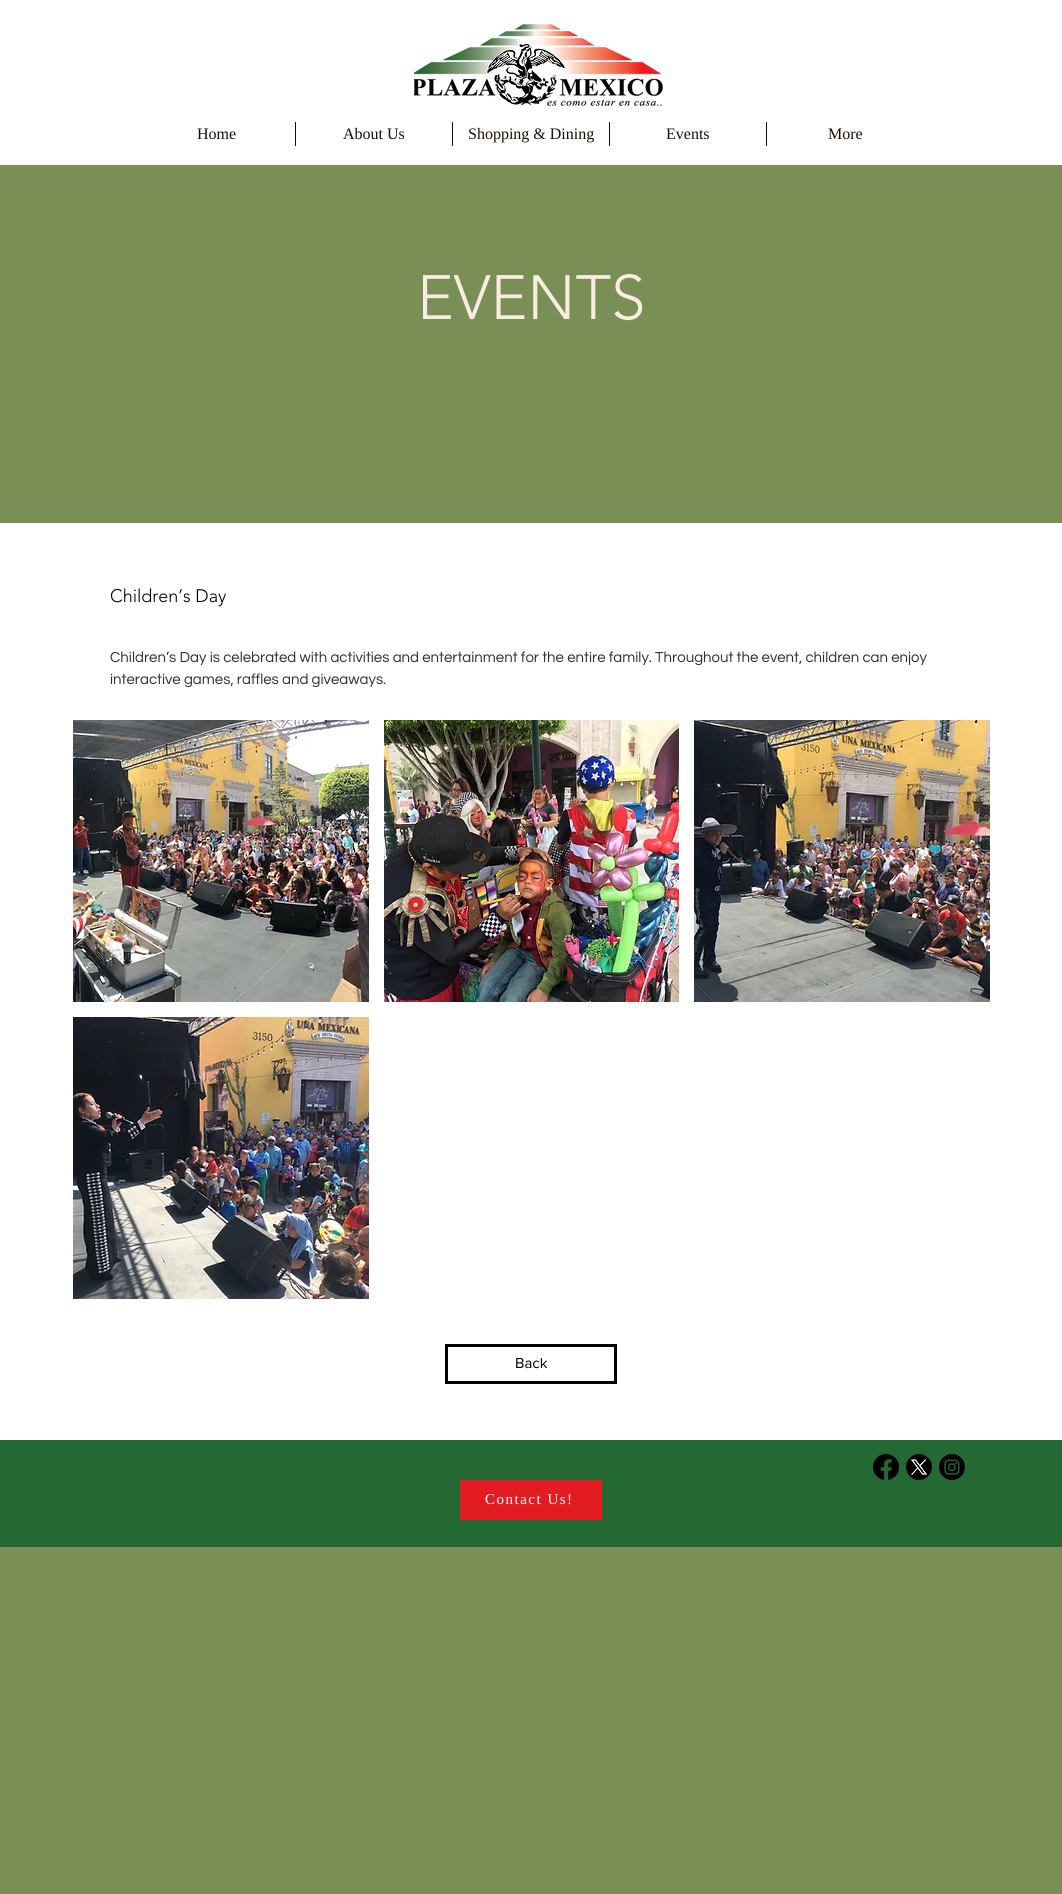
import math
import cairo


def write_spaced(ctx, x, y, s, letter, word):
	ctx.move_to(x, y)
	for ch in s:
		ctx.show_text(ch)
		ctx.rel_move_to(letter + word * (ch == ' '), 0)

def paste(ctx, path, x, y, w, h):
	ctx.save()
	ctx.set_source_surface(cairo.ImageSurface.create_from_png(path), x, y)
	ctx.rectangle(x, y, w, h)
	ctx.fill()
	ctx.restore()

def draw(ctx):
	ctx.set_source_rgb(0.478, 0.561, 0.337)
	ctx.paint()
	ctx.set_source_rgb(1, 1, 1)
	ctx.rectangle(0, 0, 1062, 165)
	ctx.fill()
	paste(ctx, 'media/1.png', 414, 24, 249, 82)
	ctx.select_font_face('Liberation Serif')
	ctx.set_font_size(16)
	ctx.set_source_rgb(0.114, 0.055, 0.012)
	ctx.move_to(197, 139)
	ctx.show_text('Home')
	ctx.rectangle(295, 122, 1, 24)
	ctx.fill()
	ctx.move_to(343, 139)
	ctx.show_text('About Us')
	ctx.rectangle(452, 122, 1, 24)
	ctx.fill()
	ctx.move_to(468, 139)
	ctx.show_text('Shopping & Dining')
	ctx.rectangle(609, 122, 1, 24)
	ctx.fill()
	ctx.move_to(666, 139)
	ctx.show_text('Events')
	ctx.rectangle(766, 122, 1, 24)
	ctx.fill()
	ctx.move_to(828, 139)
	ctx.show_text('More')
	ctx.select_font_face('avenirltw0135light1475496 Light')
	ctx.set_font_size(62)
	ctx.set_source_rgb(0.98, 0.925, 0.882)
	ctx.move_to(417, 319)
	ctx.show_text('EVENTS')
	ctx.set_source_rgb(1, 1, 1)
	ctx.rectangle(0, 523, 1062, 917)
	ctx.fill()
	ctx.set_font_size(18)
	ctx.set_source_rgb(0, 0, 0)
	ctx.move_to(110, 602)
	ctx.show_text('Children’s Day')
	ctx.select_font_face('Questrial')
	ctx.set_font_size(15)
	ctx.set_source_rgb(0.184, 0.18, 0.18)
	ctx.move_to(110, 662)
	ctx.show_text('Children’s Day is celebrated with activities and entertainment for the entire family. Throughout the event, children can enjoy')
	ctx.move_to(110, 684)
	ctx.show_text('interactive games, raffles and giveaways.')
	paste(ctx, 'media/2.png', 73, 720, 296, 282)
	paste(ctx, 'media/3.png', 384, 720, 295, 282)
	paste(ctx, 'media/4.png', 694, 720, 296, 282)
	paste(ctx, 'media/5.png', 73, 1017, 296, 282)
	ctx.rectangle(446.5, 1345.5, 169, 37)
	ctx.set_source_rgb(0, 0, 0)
	ctx.set_line_width(3)
	ctx.stroke()
	ctx.select_font_face('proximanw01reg')
	ctx.move_to(515, 1368)
	ctx.show_text('Back')
	ctx.set_source_rgb(0.141, 0.408, 0.204)
	ctx.rectangle(0, 1440, 1062, 107)
	ctx.fill()
	paste(ctx, 'media/6.png', 873, 1454, 26, 26)
	paste(ctx, 'media/7.png', 906, 1454, 26, 26)
	paste(ctx, 'media/8.png', 939, 1454, 26, 26)
	ctx.set_source_rgb(0.886, 0.11, 0.129)
	ctx.rectangle(460, 1480, 142, 40)
	ctx.fill()
	ctx.select_font_face('Liberation Serif')
	ctx.set_source_rgb(1, 1, 1)
	write_spaced(ctx, 485, 1504, 'Contact Us!', 1.5, 0)


surface = cairo.ImageSurface(cairo.FORMAT_RGB24, 1062, 1894)
ctx = cairo.Context(surface)
options = cairo.FontOptions()
options.set_hint_metrics(cairo.HINT_METRICS_OFF)
options.set_hint_style(cairo.HINT_STYLE_NONE)
ctx.set_font_options(options)
ctx.set_miter_limit(4)
draw(ctx)
surface.write_to_png('image.png')
